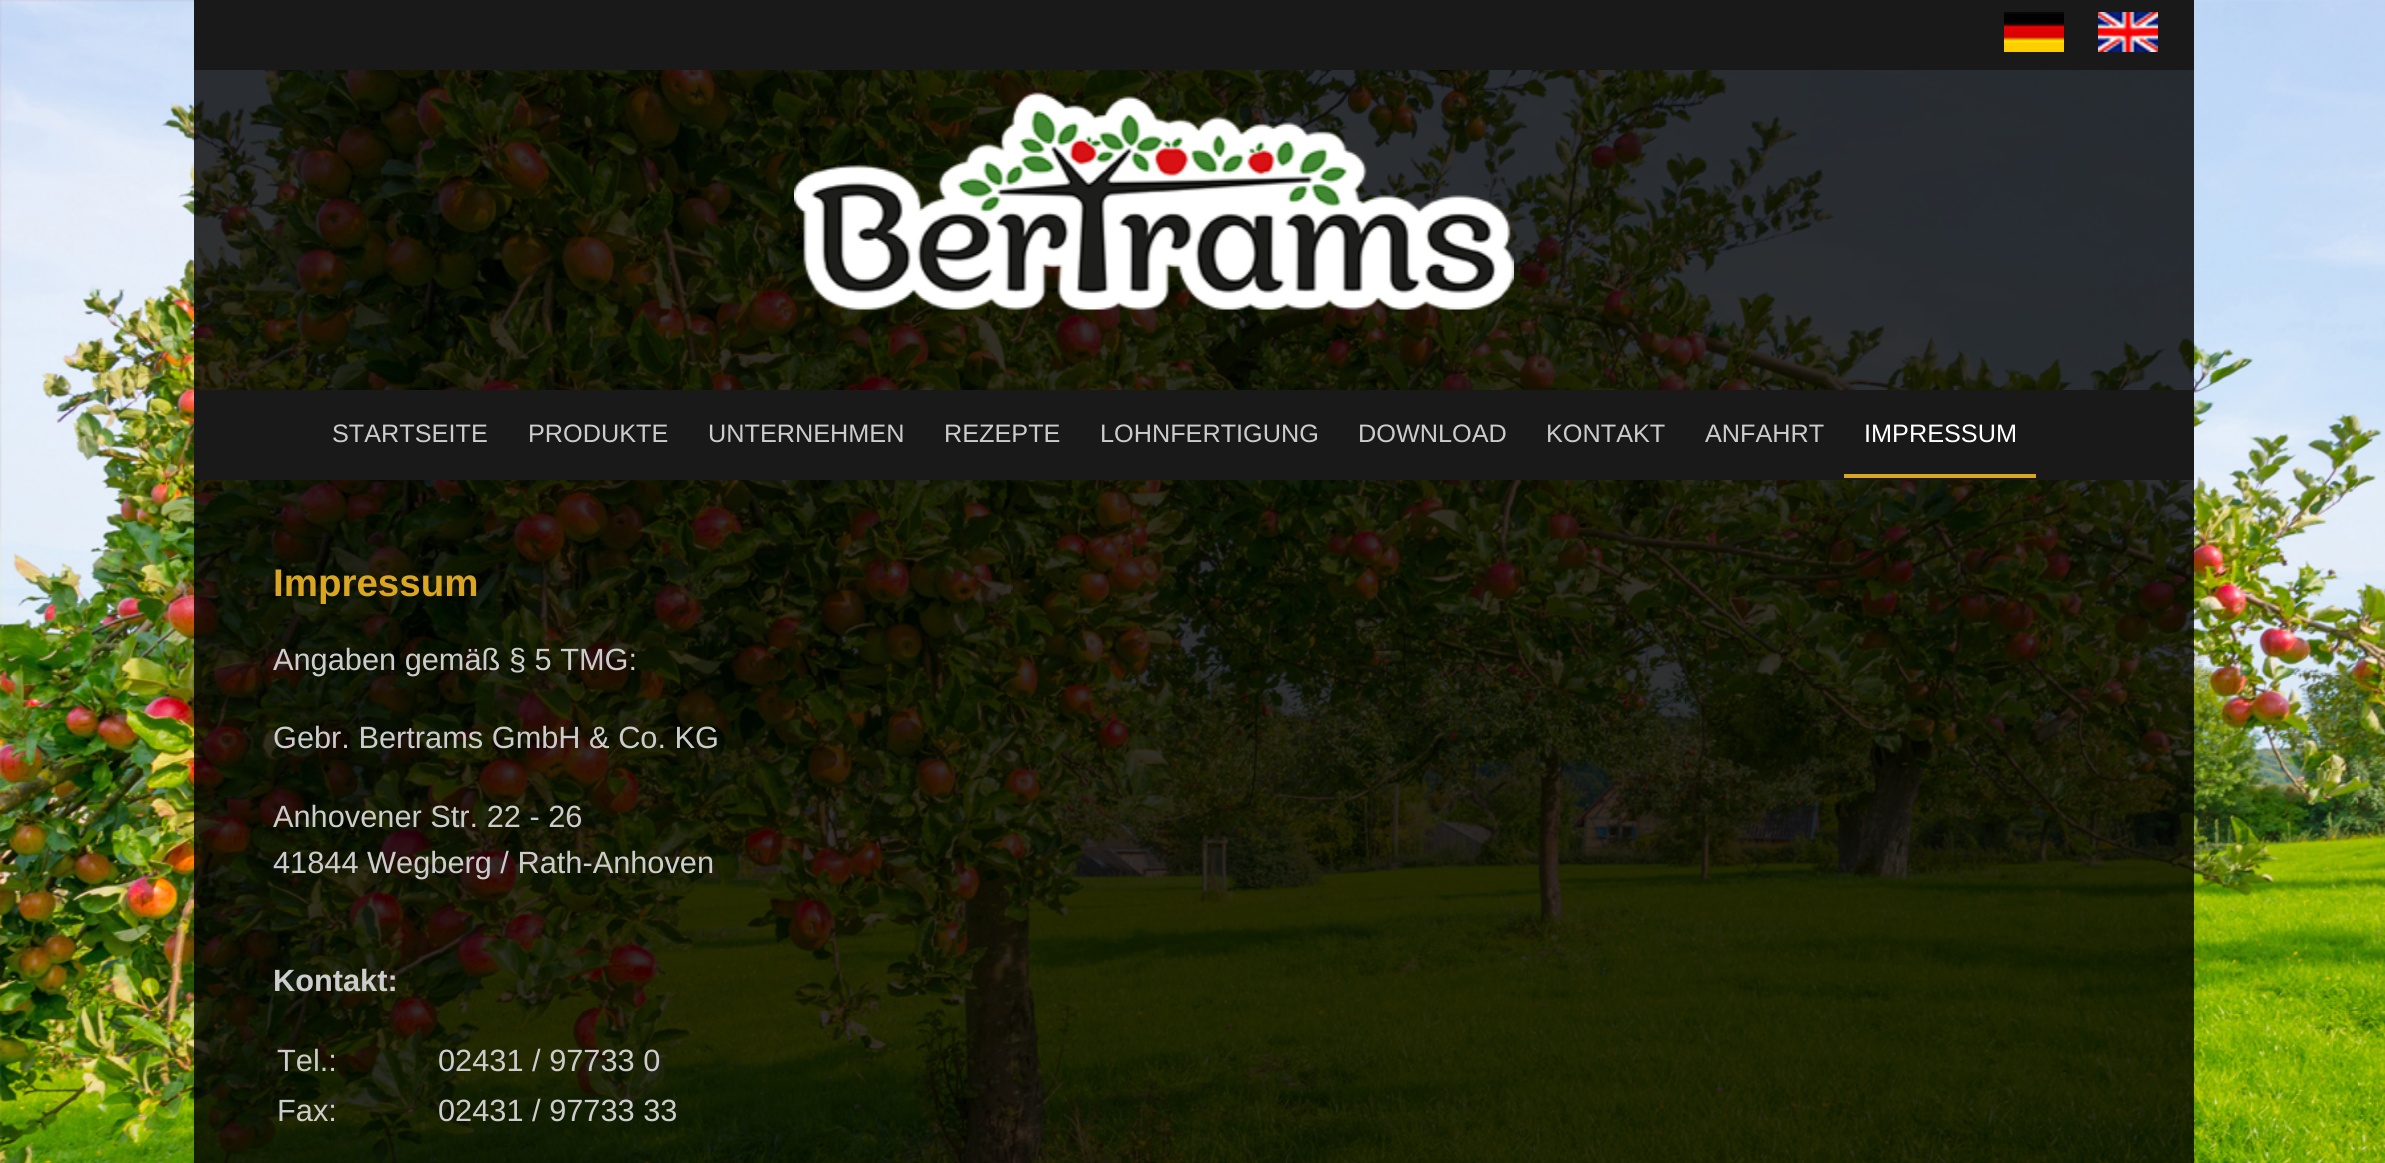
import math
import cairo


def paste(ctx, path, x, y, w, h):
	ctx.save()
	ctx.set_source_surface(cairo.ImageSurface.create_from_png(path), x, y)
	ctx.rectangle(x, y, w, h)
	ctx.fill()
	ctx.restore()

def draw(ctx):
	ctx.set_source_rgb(1, 1, 1)
	ctx.paint()
	paste(ctx, 'media/1.png', 0, 0, 2385, 1163)
	ctx.set_source_rgba(0, 0, 0, 0.8)
	ctx.rectangle(194, 70, 2000, 1093)
	ctx.fill()
	ctx.set_source_rgb(0.098, 0.098, 0.098)
	ctx.rectangle(194, 0, 2000, 70)
	ctx.fill()
	paste(ctx, 'media/2.png', 2004, 12, 60, 40)
	paste(ctx, 'media/3.png', 2098, 12, 60, 40)
	paste(ctx, 'media/4.png', 794, 92, 720, 218)
	ctx.rectangle(194, 390, 2000, 90)
	ctx.fill()
	ctx.select_font_face('Liberation Sans')
	ctx.set_font_size(25.25)
	ctx.set_source_rgb(0.8, 0.8, 0.8)
	for x, y, s in [
		(332, 442, 'STARTSEITE'),
		(528, 442, 'PRODUKTE'),
		(708, 442, 'UNTERNEHMEN'),
		(944, 442, 'REZEPTE'),
		(1100, 442, 'LOHNFERTIGUNG'),
		(1358, 442, 'DOWNLOAD'),
		(1546, 442, 'KONTAKT'),
		(1705, 442, 'ANFAHRT'),
	]:
		ctx.move_to(x, y)
		ctx.show_text(s)
	ctx.set_source_rgb(0.855, 0.647, 0.125)
	ctx.rectangle(1844, 474, 192, 4)
	ctx.fill()
	ctx.set_source_rgb(1, 1, 1)
	ctx.move_to(1864, 442)
	ctx.show_text('IMPRESSUM')
	ctx.select_font_face('Liberation Sans', cairo.FONT_SLANT_NORMAL, cairo.FONT_WEIGHT_BOLD)
	ctx.set_font_size(38.5)
	ctx.set_source_rgb(0.855, 0.647, 0.125)
	ctx.move_to(273, 596)
	ctx.show_text('Impressum')
	ctx.select_font_face('Liberation Sans')
	ctx.set_font_size(30.75)
	ctx.set_source_rgb(0.8, 0.8, 0.8)
	for x, y, s in [
		(273, 670, 'Angaben gemäß § 5 TMG:'),
		(273, 748, 'Gebr. Bertrams GmbH & Co. KG'),
		(273, 827, 'Anhovener Str. 22 - 26'),
		(273, 873, '41844 Wegberg / Rath-Anhoven'),
	]:
		ctx.move_to(x, y)
		ctx.show_text(s)
	ctx.select_font_face('Liberation Sans', cairo.FONT_SLANT_NORMAL, cairo.FONT_WEIGHT_BOLD)
	ctx.move_to(273, 991)
	ctx.show_text('Kontakt:')
	ctx.select_font_face('Liberation Sans')
	for x, y, s in [
		(277, 1071, 'Tel.:'),
		(438, 1071, '02431 / 97733 0'),
		(277, 1121, 'Fax:'),
		(438, 1121, '02431 / 97733 33'),
	]:
		ctx.move_to(x, y)
		ctx.show_text(s)


surface = cairo.ImageSurface(cairo.FORMAT_RGB24, 2385, 1163)
ctx = cairo.Context(surface)
options = cairo.FontOptions()
options.set_hint_metrics(cairo.HINT_METRICS_OFF)
options.set_hint_style(cairo.HINT_STYLE_NONE)
ctx.set_font_options(options)
ctx.set_miter_limit(4)
draw(ctx)
surface.write_to_png('image.png')
